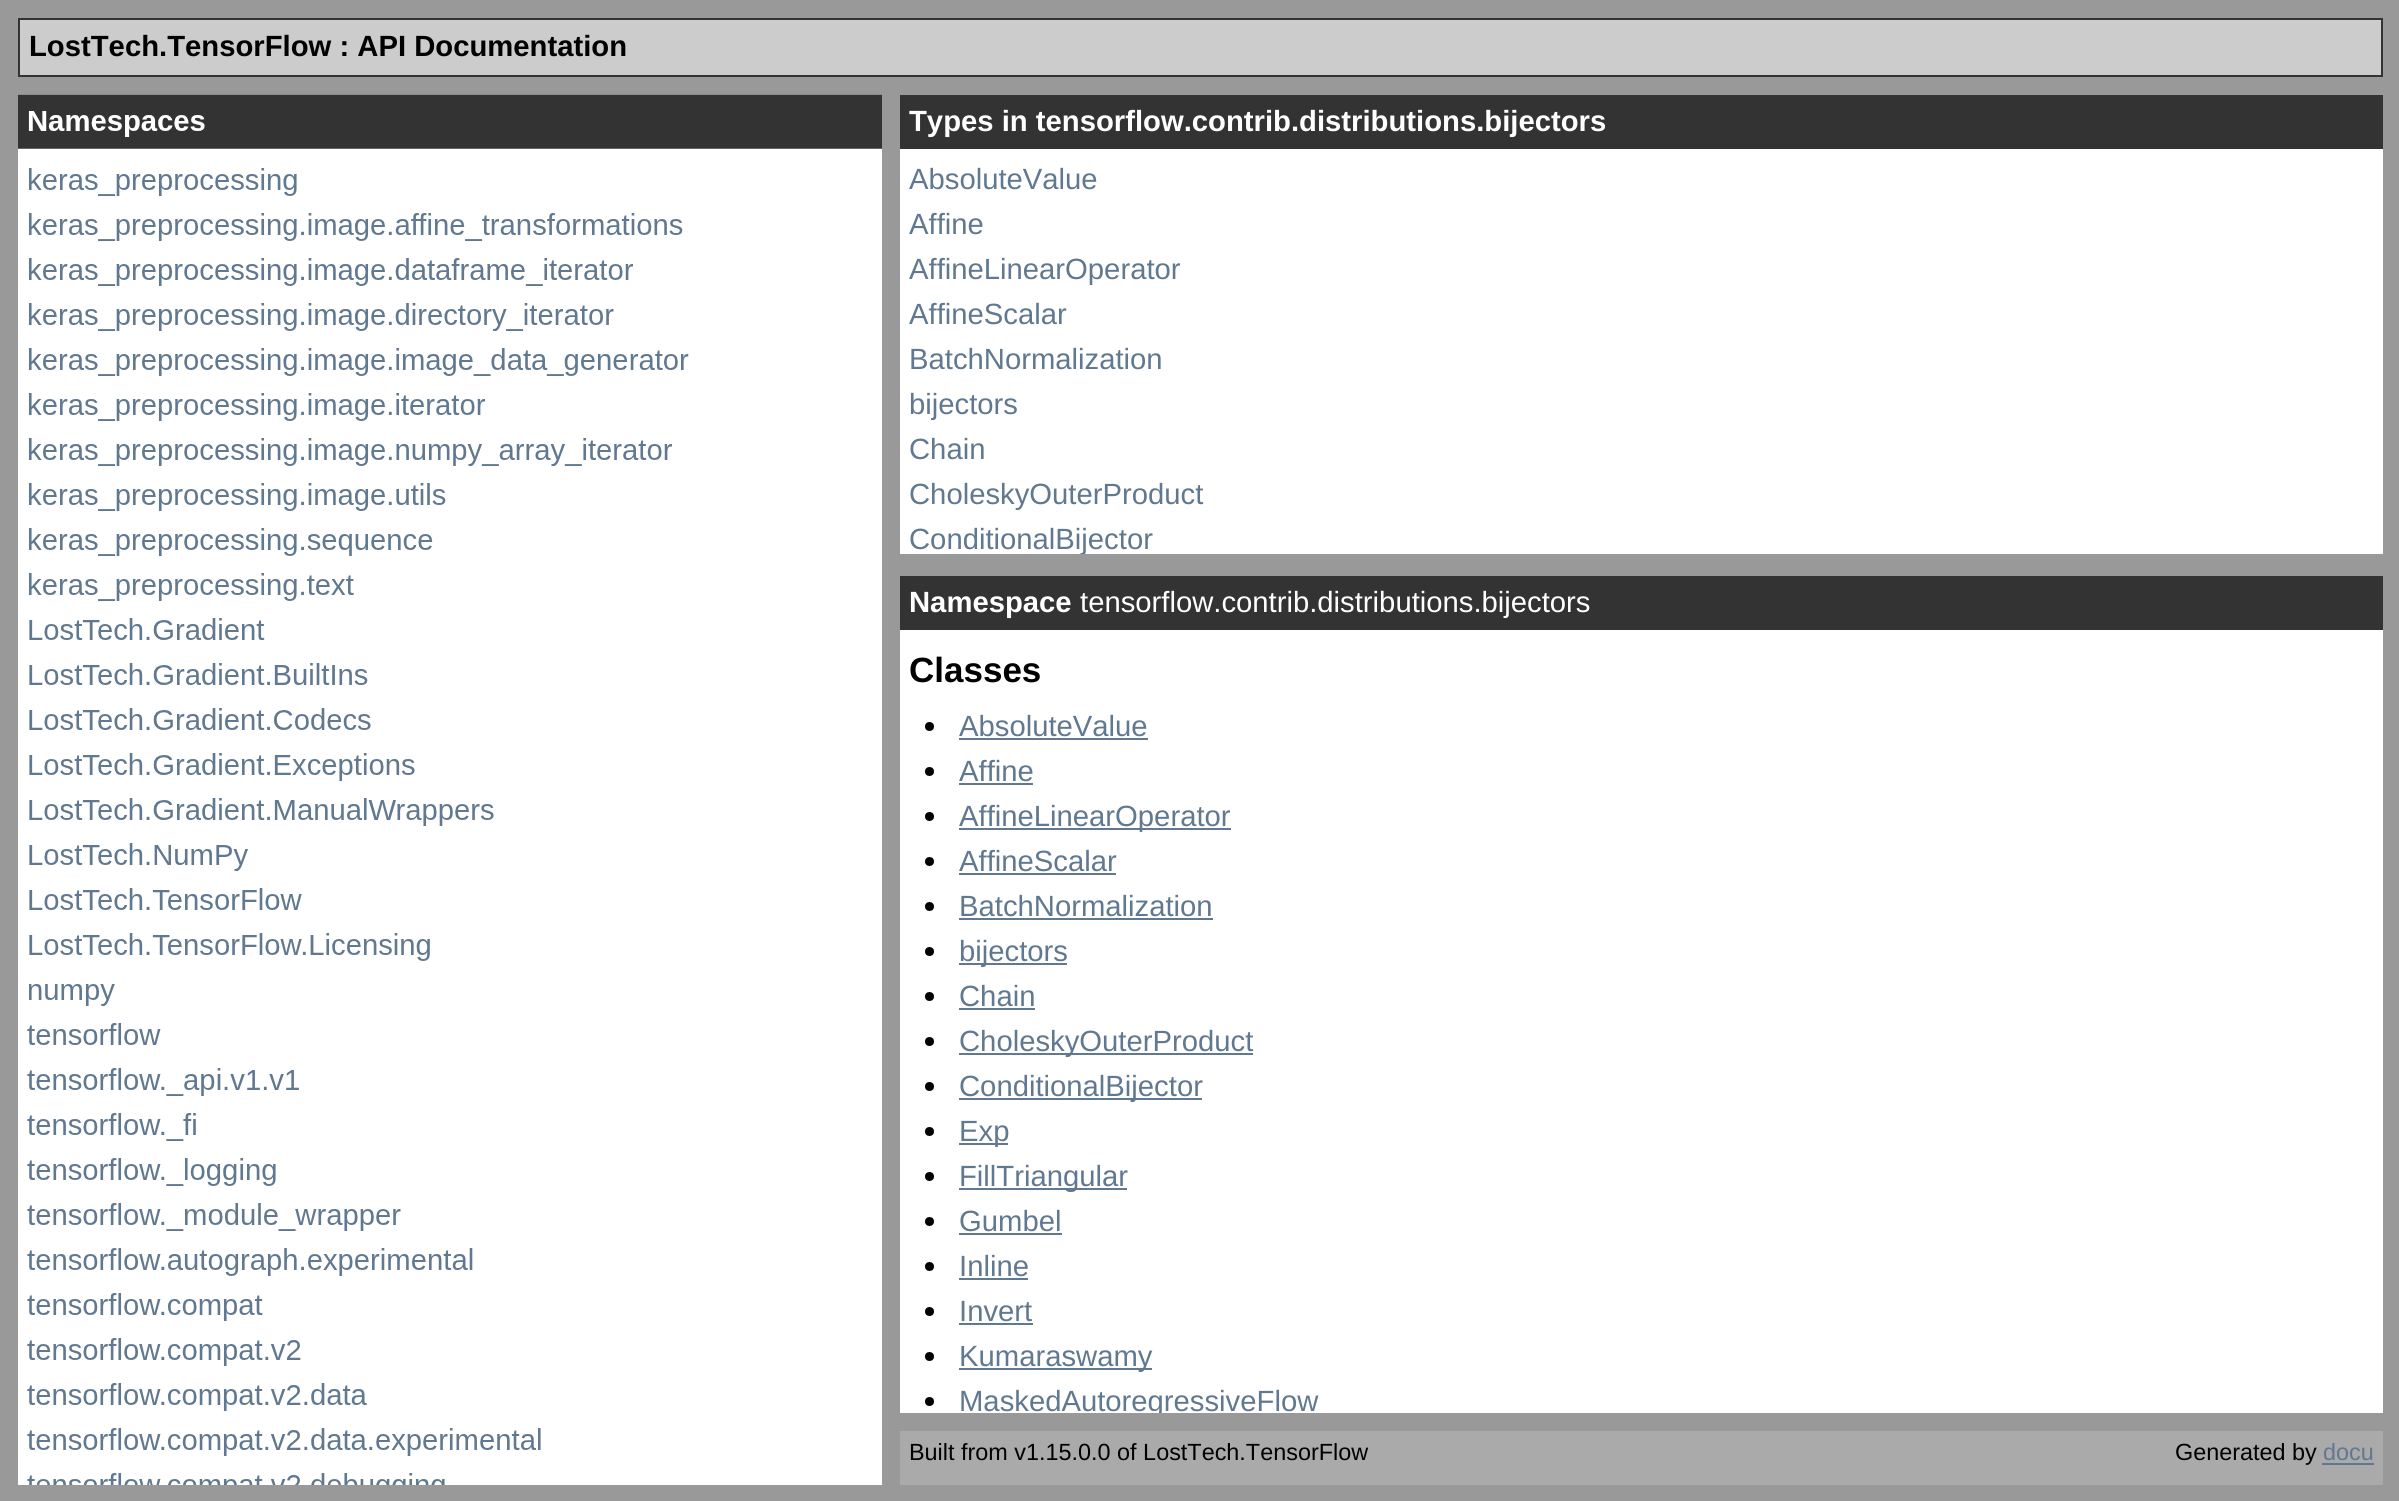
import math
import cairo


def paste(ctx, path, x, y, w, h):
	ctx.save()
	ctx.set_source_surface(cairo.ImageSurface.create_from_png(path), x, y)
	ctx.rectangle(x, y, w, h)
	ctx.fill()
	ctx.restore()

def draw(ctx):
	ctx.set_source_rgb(0.6, 0.6, 0.6)
	ctx.paint()
	ctx.set_source_rgb(0.8, 0.8, 0.8)
	ctx.rectangle(19, 19, 2363, 57)
	ctx.fill_preserve()
	ctx.set_source_rgb(0.2, 0.2, 0.2)
	ctx.stroke()
	ctx.select_font_face('Liberation Sans', cairo.FONT_SLANT_NORMAL, cairo.FONT_WEIGHT_BOLD)
	ctx.set_font_size(29.25)
	ctx.set_source_rgb(0, 0, 0)
	ctx.move_to(29, 56)
	ctx.show_text('LostTech.TensorFlow : API Documentation')
	paste(ctx, 'media/1.png', 18, 94, 864, 1391)
	ctx.set_source_rgb(1, 1, 1)
	ctx.rectangle(900, 149, 1483, 405)
	ctx.fill()
	ctx.set_source_rgb(0.2, 0.2, 0.2)
	ctx.rectangle(900, 95, 1483, 54)
	ctx.fill()
	ctx.set_source_rgb(1, 1, 1)
	ctx.move_to(909, 131)
	ctx.show_text('Types in tensorflow.contrib.distributions.bijectors')
	ctx.select_font_face('Liberation Sans')
	ctx.set_source_rgb(0.376, 0.471, 0.565)
	for x, y, s in [
		(909, 189, 'AbsoluteValue'),
		(909, 234, 'Affine'),
		(909, 279, 'AffineLinearOperator'),
		(909, 324, 'AffineScalar'),
		(909, 369, 'BatchNormalization'),
		(909, 414, 'bijectors'),
		(909, 459, 'Chain'),
		(909, 504, 'CholeskyOuterProduct'),
	]:
		ctx.move_to(x, y)
		ctx.show_text(s)
	ctx.save()
	ctx.rectangle(900, 149, 1483, 405)
	ctx.clip()
	ctx.move_to(909, 549)
	ctx.show_text('ConditionalBijector')
	ctx.restore()
	ctx.set_source_rgb(1, 1, 1)
	ctx.rectangle(900, 630, 1483, 783)
	ctx.fill()
	ctx.set_source_rgb(0.2, 0.2, 0.2)
	ctx.rectangle(900, 576, 1483, 54)
	ctx.fill()
	ctx.select_font_face('Liberation Sans', cairo.FONT_SLANT_NORMAL, cairo.FONT_WEIGHT_BOLD)
	ctx.set_source_rgb(1, 1, 1)
	ctx.move_to(909, 612)
	ctx.show_text('Namespace')
	ctx.select_font_face('Liberation Sans')
	ctx.move_to(1080, 612)
	ctx.show_text('tensorflow.contrib.distributions.bijectors')
	ctx.select_font_face('Liberation Sans', cairo.FONT_SLANT_NORMAL, cairo.FONT_WEIGHT_BOLD)
	ctx.set_font_size(35)
	ctx.set_source_rgb(0, 0, 0)
	ctx.move_to(909, 682)
	ctx.show_text('Classes')
	ctx.new_path()
	ctx.arc(929.5, 726.5, 4.5, 0, 2 * math.pi)
	ctx.fill()
	ctx.select_font_face('Liberation Sans')
	ctx.set_font_size(29.25)
	ctx.set_source_rgb(0.376, 0.471, 0.565)
	ctx.move_to(959, 736)
	ctx.show_text('AbsoluteValue')
	ctx.rectangle(959, 738, 189, 2)
	ctx.fill()
	ctx.set_source_rgb(0, 0, 0)
	ctx.arc(929.5, 771.5, 4.5, 0, 2 * math.pi)
	ctx.fill()
	ctx.set_source_rgb(0.376, 0.471, 0.565)
	ctx.move_to(959, 781)
	ctx.show_text('Affine')
	ctx.rectangle(959, 783, 74, 2)
	ctx.fill()
	ctx.set_source_rgb(0, 0, 0)
	ctx.arc(929.5, 816.5, 4.5, 0, 2 * math.pi)
	ctx.fill()
	ctx.set_source_rgb(0.376, 0.471, 0.565)
	ctx.rectangle(959, 828, 272, 2)
	ctx.fill()
	ctx.move_to(959, 826)
	ctx.show_text('AffineLinearOperator')
	ctx.set_source_rgb(0, 0, 0)
	ctx.new_path()
	ctx.arc(929.5, 861.5, 4.5, 0, 2 * math.pi)
	ctx.fill()
	ctx.set_source_rgb(0.376, 0.471, 0.565)
	ctx.move_to(959, 871)
	ctx.show_text('AffineScalar')
	ctx.rectangle(959, 873, 157, 2)
	ctx.fill()
	ctx.set_source_rgb(0, 0, 0)
	ctx.arc(929.5, 906.5, 4.5, 0, 2 * math.pi)
	ctx.fill()
	ctx.set_source_rgb(0.376, 0.471, 0.565)
	ctx.move_to(959, 916)
	ctx.show_text('BatchNormalization')
	ctx.rectangle(959, 918, 254, 2)
	ctx.fill()
	ctx.set_source_rgb(0, 0, 0)
	ctx.arc(929.5, 951.5, 4.5, 0, 2 * math.pi)
	ctx.fill()
	ctx.set_source_rgb(0.376, 0.471, 0.565)
	ctx.rectangle(959, 963, 108, 2)
	ctx.fill()
	ctx.move_to(959, 961)
	ctx.show_text('bijectors')
	ctx.set_source_rgb(0, 0, 0)
	ctx.new_path()
	ctx.arc(929.5, 996.5, 4.5, 0, 2 * math.pi)
	ctx.fill()
	ctx.set_source_rgb(0.376, 0.471, 0.565)
	ctx.move_to(959, 1006)
	ctx.show_text('Chain')
	ctx.rectangle(959, 1008, 76, 2)
	ctx.fill()
	ctx.set_source_rgb(0, 0, 0)
	ctx.arc(929.5, 1041.5, 4.5, 0, 2 * math.pi)
	ctx.fill()
	ctx.set_source_rgb(0.376, 0.471, 0.565)
	ctx.rectangle(959, 1053, 294, 2)
	ctx.fill()
	ctx.move_to(959, 1051)
	ctx.show_text('CholeskyOuterProduct')
	ctx.set_source_rgb(0, 0, 0)
	ctx.new_path()
	ctx.arc(929.5, 1086.5, 4.5, 0, 2 * math.pi)
	ctx.fill()
	ctx.set_source_rgb(0.376, 0.471, 0.565)
	ctx.rectangle(959, 1098, 243, 2)
	ctx.fill()
	ctx.move_to(959, 1096)
	ctx.show_text('ConditionalBijector')
	ctx.set_source_rgb(0, 0, 0)
	ctx.new_path()
	ctx.arc(929.5, 1131.5, 4.5, 0, 2 * math.pi)
	ctx.fill()
	ctx.set_source_rgb(0.376, 0.471, 0.565)
	ctx.rectangle(959, 1143, 49, 2)
	ctx.fill()
	ctx.move_to(959, 1141)
	ctx.show_text('Exp')
	ctx.set_source_rgb(0, 0, 0)
	ctx.new_path()
	ctx.arc(929.5, 1176.5, 4.5, 0, 2 * math.pi)
	ctx.fill()
	ctx.set_source_rgb(0.376, 0.471, 0.565)
	ctx.rectangle(959, 1188, 168, 2)
	ctx.fill()
	ctx.move_to(959, 1186)
	ctx.show_text('FillTriangular')
	ctx.set_source_rgb(0, 0, 0)
	ctx.new_path()
	ctx.arc(929.5, 1221.5, 4.5, 0, 2 * math.pi)
	ctx.fill()
	ctx.set_source_rgb(0.376, 0.471, 0.565)
	ctx.move_to(959, 1231)
	ctx.show_text('Gumbel')
	ctx.rectangle(959, 1233, 103, 2)
	ctx.fill()
	ctx.set_source_rgb(0, 0, 0)
	ctx.arc(929.5, 1266.5, 4.5, 0, 2 * math.pi)
	ctx.fill()
	ctx.set_source_rgb(0.376, 0.471, 0.565)
	ctx.move_to(959, 1276)
	ctx.show_text('Inline')
	ctx.rectangle(959, 1278, 69, 2)
	ctx.fill()
	ctx.set_source_rgb(0, 0, 0)
	ctx.arc(929.5, 1311.5, 4.5, 0, 2 * math.pi)
	ctx.fill()
	ctx.set_source_rgb(0.376, 0.471, 0.565)
	ctx.move_to(959, 1321)
	ctx.show_text('Invert')
	ctx.rectangle(959, 1323, 74, 2)
	ctx.fill()
	ctx.set_source_rgb(0, 0, 0)
	ctx.arc(929.5, 1356.5, 4.5, 0, 2 * math.pi)
	ctx.fill()
	ctx.set_source_rgb(0.376, 0.471, 0.565)
	ctx.rectangle(959, 1368, 193, 2)
	ctx.fill()
	ctx.move_to(959, 1366)
	ctx.show_text('Kumaraswamy')
	ctx.set_source_rgb(0, 0, 0)
	ctx.new_path()
	ctx.arc(929.5, 1401.5, 4.5, 0, 2 * math.pi)
	ctx.fill()
	ctx.save()
	ctx.rectangle(900, 630, 1483, 783)
	ctx.clip()
	ctx.set_source_rgb(0.376, 0.471, 0.565)
	ctx.move_to(959, 1411)
	ctx.show_text('MaskedAutoregressiveFlow')
	ctx.restore()
	ctx.set_source_rgb(0.667, 0.667, 0.667)
	ctx.rectangle(900, 1431, 1483, 54)
	ctx.fill()
	ctx.set_font_size(23.4)
	ctx.set_source_rgb(0, 0, 0)
	ctx.move_to(909, 1460)
	ctx.show_text('Built from v1.15.0.0 of LostTech.TensorFlow')
	ctx.move_to(2175, 1460)
	ctx.show_text('Generated by')
	ctx.set_source_rgb(0.376, 0.471, 0.565)
	ctx.move_to(2323, 1460)
	ctx.show_text('docu')
	ctx.rectangle(2322, 1463, 52, 2)
	ctx.fill()


surface = cairo.ImageSurface(cairo.FORMAT_RGB24, 2399, 1501)
ctx = cairo.Context(surface)
options = cairo.FontOptions()
options.set_hint_metrics(cairo.HINT_METRICS_OFF)
options.set_hint_style(cairo.HINT_STYLE_NONE)
ctx.set_font_options(options)
ctx.set_miter_limit(4)
draw(ctx)
surface.write_to_png('image.png')
